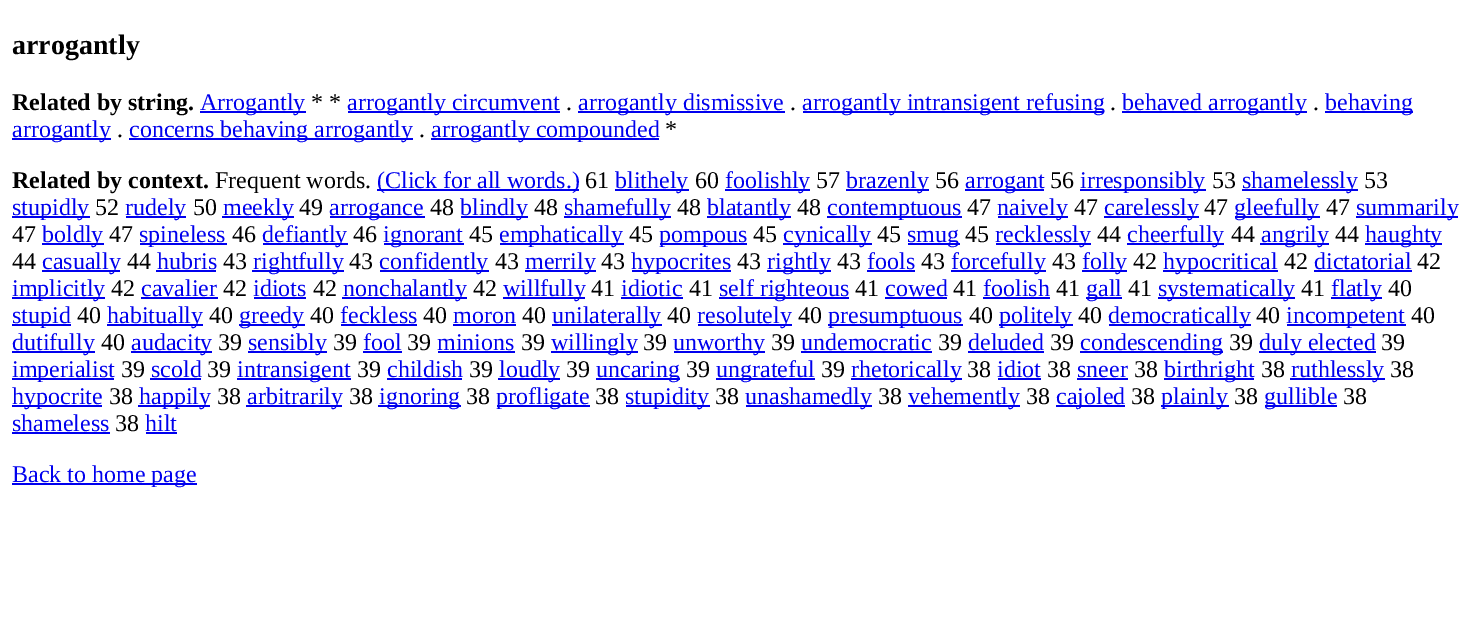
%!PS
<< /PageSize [1479 618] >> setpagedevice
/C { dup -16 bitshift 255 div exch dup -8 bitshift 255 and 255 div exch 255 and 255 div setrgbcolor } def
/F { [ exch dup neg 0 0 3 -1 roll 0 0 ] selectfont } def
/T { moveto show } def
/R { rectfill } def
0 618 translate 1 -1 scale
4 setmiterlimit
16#FFFFFF C
0 0 1479 618 R
/LiberationSerif-Bold 28 F
16#000000 C
(arrogantly) 12 54 T
/LiberationSerif-Bold 24 F
(Related by string.) 12 110 T
16#0000EE C
200 111 106 2 R
/LiberationSerif-Regular 24 F
(Arrogantly) 200 110 T
16#000000 C
(* *) 311 110 T
16#0000EE C
348 111 212 2 R
(arrogantly circumvent) 347 110 T
578 111 207 2 R
(arrogantly dismissive) 578 110 T
803 111 301 2 R
(arrogantly intransigent refusing) 802 110 T
1122 111 185 2 R
(behaved arrogantly) 1122 110 T
1325 111 88 2 R
(behaving) 1325 110 T
16#000000 C
(.) 566 110 T
(.) 790 110 T
(.) 1110 110 T
(.) 1313 110 T
16#0000EE C
12 138 99 2 R
(arrogantly) 12 137 T
129 138 284 2 R
(concerns behaving arrogantly) 129 137 T
431 138 228 2 R
(arrogantly compounded) 431 137 T
16#000000 C
(*) 665 137 T
(.) 117 137 T
(.) 419 137 T
/LiberationSerif-Bold 24 F
(Related by context.) 12 188 T
/LiberationSerif-Regular 24 F
(Frequent words.) 215 188 T
16#0000EE C
377 189 202 2 R
(\(Click for all words.\)) 377 188 T
16#000000 C
(61) 585 188 T
16#0000EE C
615 189 74 2 R
(blithely) 615 188 T
16#000000 C
(60) 695 188 T
16#0000EE C
725 189 85 2 R
(foolishly) 725 188 T
16#000000 C
(57) 816 188 T
16#0000EE C
846 189 83 2 R
(brazenly) 846 188 T
16#000000 C
(56) 935 188 T
16#0000EE C
965 189 79 2 R
(arrogant) 965 188 T
16#000000 C
(56) 1050 188 T
16#0000EE C
1080 189 126 2 R
(irresponsibly) 1080 188 T
16#000000 C
(53) 1212 188 T
16#0000EE C
1242 189 116 2 R
(shamelessly) 1242 188 T
16#000000 C
(53) 1364 188 T
16#0000EE C
12 216 78 2 R
(stupidly) 12 215 T
16#000000 C
(52) 95 215 T
16#0000EE C
126 216 60 2 R
(rudely) 125 215 T
16#000000 C
(50) 193 215 T
16#0000EE C
222 216 72 2 R
(meekly) 223 215 T
16#000000 C
(49) 299 215 T
16#0000EE C
330 216 95 2 R
(arrogance) 329 215 T
16#000000 C
(48) 430 215 T
16#0000EE C
461 216 67 2 R
(blindly) 460 215 T
16#000000 C
(48) 534 215 T
16#0000EE C
564 216 107 2 R
(shamefully) 564 215 T
16#000000 C
(48) 677 215 T
16#0000EE C
707 216 84 2 R
(blatantly) 707 215 T
16#000000 C
(48) 797 215 T
16#0000EE C
827 216 135 2 R
(contemptuous) 827 215 T
16#000000 C
(47) 967 215 T
16#0000EE C
998 216 70 2 R
(naively) 997 215 T
16#000000 C
(47) 1074 215 T
16#0000EE C
1104 216 95 2 R
(carelessly) 1104 215 T
16#000000 C
(47) 1204 215 T
16#0000EE C
1235 216 85 2 R
(gleefully) 1234 215 T
16#000000 C
(47) 1326 215 T
16#0000EE C
1356 216 102 2 R
(summarily) 1356 215 T
16#000000 C
(47) 12 242 T
16#0000EE C
42 243 62 2 R
(boldly) 42 242 T
16#000000 C
(47) 109 242 T
16#0000EE C
140 243 87 2 R
(spineless) 139 242 T
16#000000 C
(46) 232 242 T
16#0000EE C
263 243 85 2 R
(defiantly) 262 242 T
16#000000 C
(46) 353 242 T
16#0000EE C
384 243 80 2 R
(ignorant) 383 242 T
16#000000 C
(45) 469 242 T
16#0000EE C
500 243 124 2 R
(emphatically) 499 242 T
16#000000 C
(45) 629 242 T
16#0000EE C
660 243 87 2 R
(pompous) 659 242 T
16#000000 C
(45) 753 242 T
16#0000EE C
783 243 89 2 R
(cynically) 783 242 T
16#000000 C
(45) 877 242 T
16#0000EE C
908 243 52 2 R
(smug) 907 242 T
16#000000 C
(45) 965 242 T
16#0000EE C
996 243 95 2 R
(recklessly) 995 242 T
16#000000 C
(44) 1097 242 T
16#0000EE C
1127 243 97 2 R
(cheerfully) 1127 242 T
16#000000 C
(44) 1231 242 T
16#0000EE C
1260 243 69 2 R
(angrily) 1261 242 T
16#000000 C
(44) 1335 242 T
16#0000EE C
1365 243 77 2 R
(haughty) 1365 242 T
16#000000 C
(44) 12 269 T
16#0000EE C
42 270 78 2 R
(casually) 42 269 T
16#000000 C
(44) 127 269 T
16#0000EE C
(hubris) 157 269 T
156 270 60 2 R
16#000000 C
(43) 223 269 T
16#0000EE C
252 270 92 2 R
(rightfully) 253 269 T
16#000000 C
(43) 349 269 T
16#0000EE C
380 270 109 2 R
(confidently) 379 269 T
16#000000 C
(43) 495 269 T
16#0000EE C
525 270 71 2 R
(merrily) 525 269 T
16#000000 C
(43) 601 269 T
16#0000EE C
632 270 99 2 R
(hypocrites) 631 269 T
16#000000 C
(43) 737 269 T
16#0000EE C
767 270 64 2 R
(rightly) 767 269 T
16#000000 C
(43) 837 269 T
16#0000EE C
(fools) 867 269 T
867 270 48 2 R
16#000000 C
(43) 921 269 T
16#0000EE C
951 270 95 2 R
(forcefully) 951 269 T
16#000000 C
(43) 1052 269 T
16#0000EE C
1082 270 45 2 R
(folly) 1082 269 T
16#000000 C
(42) 1133 269 T
16#0000EE C
1163 270 115 2 R
(hypocritical) 1163 269 T
16#000000 C
(42) 1284 269 T
16#0000EE C
(dictatorial) 1314 269 T
1314 270 98 2 R
16#000000 C
(42) 1417 269 T
16#0000EE C
12 297 93 2 R
(implicitly) 12 296 T
16#000000 C
(42) 111 296 T
16#0000EE C
(cavalier) 141 296 T
141 297 77 2 R
16#000000 C
(42) 223 296 T
16#0000EE C
(idiots) 253 296 T
254 297 52 2 R
16#000000 C
(42) 313 296 T
16#0000EE C
342 297 125 2 R
(nonchalantly) 343 296 T
16#000000 C
(42) 473 296 T
16#0000EE C
503 297 82 2 R
(willfully) 503 296 T
16#000000 C
(41) 591 296 T
16#0000EE C
(idiotic) 621 296 T
621 297 62 2 R
16#000000 C
(41) 689 296 T
16#0000EE C
719 297 130 2 R
(self righteous) 719 296 T
16#000000 C
(41) 855 296 T
16#0000EE C
(cowed) 885 296 T
885 297 62 2 R
16#000000 C
(41) 953 296 T
16#0000EE C
(foolish) 983 296 T
983 297 67 2 R
16#000000 C
(41) 1056 296 T
16#0000EE C
1086 297 36 2 R
(gall) 1086 296 T
16#000000 C
(41) 1128 296 T
16#0000EE C
1158 297 137 2 R
(systematically) 1158 296 T
16#000000 C
(41) 1301 296 T
16#0000EE C
1331 297 51 2 R
(flatly) 1331 296 T
16#000000 C
(40) 1388 296 T
16#0000EE C
12 324 59 2 R
(stupid) 12 323 T
16#000000 C
(40) 77 323 T
16#0000EE C
107 324 96 2 R
(habitually) 107 323 T
16#000000 C
(40) 209 323 T
16#0000EE C
239 324 66 2 R
(greedy) 239 323 T
16#000000 C
(40) 310 323 T
16#0000EE C
(feckless) 340 323 T
341 324 76 2 R
16#000000 C
(40) 423 323 T
16#0000EE C
(moron) 453 323 T
453 324 63 2 R
16#000000 C
(40) 522 323 T
16#0000EE C
552 324 110 2 R
(unilaterally) 552 323 T
16#000000 C
(40) 667 323 T
16#0000EE C
698 324 94 2 R
(resolutely) 697 323 T
16#000000 C
(40) 798 323 T
16#0000EE C
828 324 135 2 R
(presumptuous) 828 323 T
16#000000 C
(40) 969 323 T
16#0000EE C
999 324 74 2 R
(politely) 999 323 T
16#000000 C
(40) 1078 323 T
16#0000EE C
1109 324 142 2 R
(democratically) 1108 323 T
16#000000 C
(40) 1256 323 T
16#0000EE C
1287 324 119 2 R
(incompetent) 1286 323 T
16#000000 C
(40) 1411 323 T
16#0000EE C
12 351 83 2 R
(dutifully) 12 350 T
16#000000 C
(40) 101 350 T
16#0000EE C
131 351 81 2 R
(audacity) 131 350 T
16#000000 C
(39) 218 350 T
16#0000EE C
248 351 79 2 R
(sensibly) 248 350 T
16#000000 C
(39) 333 350 T
16#0000EE C
(fool) 363 350 T
363 351 39 2 R
16#000000 C
(39) 407 350 T
16#0000EE C
(minions) 437 350 T
438 351 77 2 R
16#000000 C
(39) 521 350 T
16#0000EE C
551 351 87 2 R
(willingly) 551 350 T
16#000000 C
(39) 643 350 T
16#0000EE C
674 351 91 2 R
(unworthy) 673 350 T
16#000000 C
(39) 771 350 T
16#0000EE C
(undemocratic) 801 350 T
801 351 131 2 R
16#000000 C
(39) 938 350 T
16#0000EE C
(deluded) 968 350 T
968 351 76 2 R
16#000000 C
(39) 1050 350 T
16#0000EE C
1080 351 143 2 R
(condescending) 1080 350 T
16#000000 C
(39) 1229 350 T
16#0000EE C
1259 351 117 2 R
(duly elected) 1259 350 T
16#000000 C
(39) 1381 350 T
16#0000EE C
12 378 102 2 R
(imperialist) 12 377 T
16#000000 C
(39) 121 377 T
16#0000EE C
(scold) 151 377 T
150 378 51 2 R
16#000000 C
(39) 207 377 T
16#0000EE C
237 378 114 2 R
(intransigent) 237 377 T
16#000000 C
(39) 357 377 T
16#0000EE C
(childish) 387 377 T
387 378 75 2 R
16#000000 C
(39) 469 377 T
16#0000EE C
498 378 62 2 R
(loudly) 499 377 T
16#000000 C
(39) 566 377 T
16#0000EE C
596 378 84 2 R
(uncaring) 596 377 T
16#000000 C
(39) 686 377 T
16#0000EE C
716 378 99 2 R
(ungrateful) 716 377 T
16#000000 C
(39) 821 377 T
16#0000EE C
851 378 111 2 R
(rhetorically) 851 377 T
16#000000 C
(38) 967 377 T
16#0000EE C
(idiot) 997 377 T
998 378 43 2 R
16#000000 C
(38) 1047 377 T
16#0000EE C
(sneer) 1077 377 T
1077 378 51 2 R
16#000000 C
(38) 1134 377 T
16#0000EE C
1164 378 90 2 R
(birthright) 1164 377 T
16#000000 C
(38) 1261 377 T
16#0000EE C
1290 378 95 2 R
(ruthlessly) 1291 377 T
16#000000 C
(38) 1390 377 T
16#0000EE C
12 405 90 2 R
(hypocrite) 12 404 T
16#000000 C
(38) 109 404 T
16#0000EE C
138 405 72 2 R
(happily) 139 404 T
16#000000 C
(38) 217 404 T
16#0000EE C
246 405 96 2 R
(arbitrarily) 247 404 T
16#000000 C
(38) 349 404 T
16#0000EE C
378 405 83 2 R
(ignoring) 379 404 T
16#000000 C
(38) 466 404 T
16#0000EE C
497 405 93 2 R
(profligate) 496 404 T
16#000000 C
(38) 595 404 T
16#0000EE C
626 405 84 2 R
(stupidity) 625 404 T
16#000000 C
(38) 715 404 T
16#0000EE C
746 405 126 2 R
(unashamedly) 745 404 T
16#000000 C
(38) 878 404 T
16#0000EE C
908 405 112 2 R
(vehemently) 908 404 T
16#000000 C
(38) 1026 404 T
16#0000EE C
1056 405 69 2 R
(cajoled) 1056 404 T
16#000000 C
(38) 1131 404 T
16#0000EE C
1161 405 68 2 R
(plainly) 1161 404 T
16#000000 C
(38) 1234 404 T
16#0000EE C
1265 405 72 2 R
(gullible) 1264 404 T
16#000000 C
(38) 1343 404 T
16#0000EE C
(shameless) 12 431 T
12 432 98 2 R
16#000000 C
(38) 115 431 T
16#0000EE C
(hilt) 145 431 T
146 432 31 2 R
12 483 185 2 R
(Back to home page) 12 482 T
showpage
